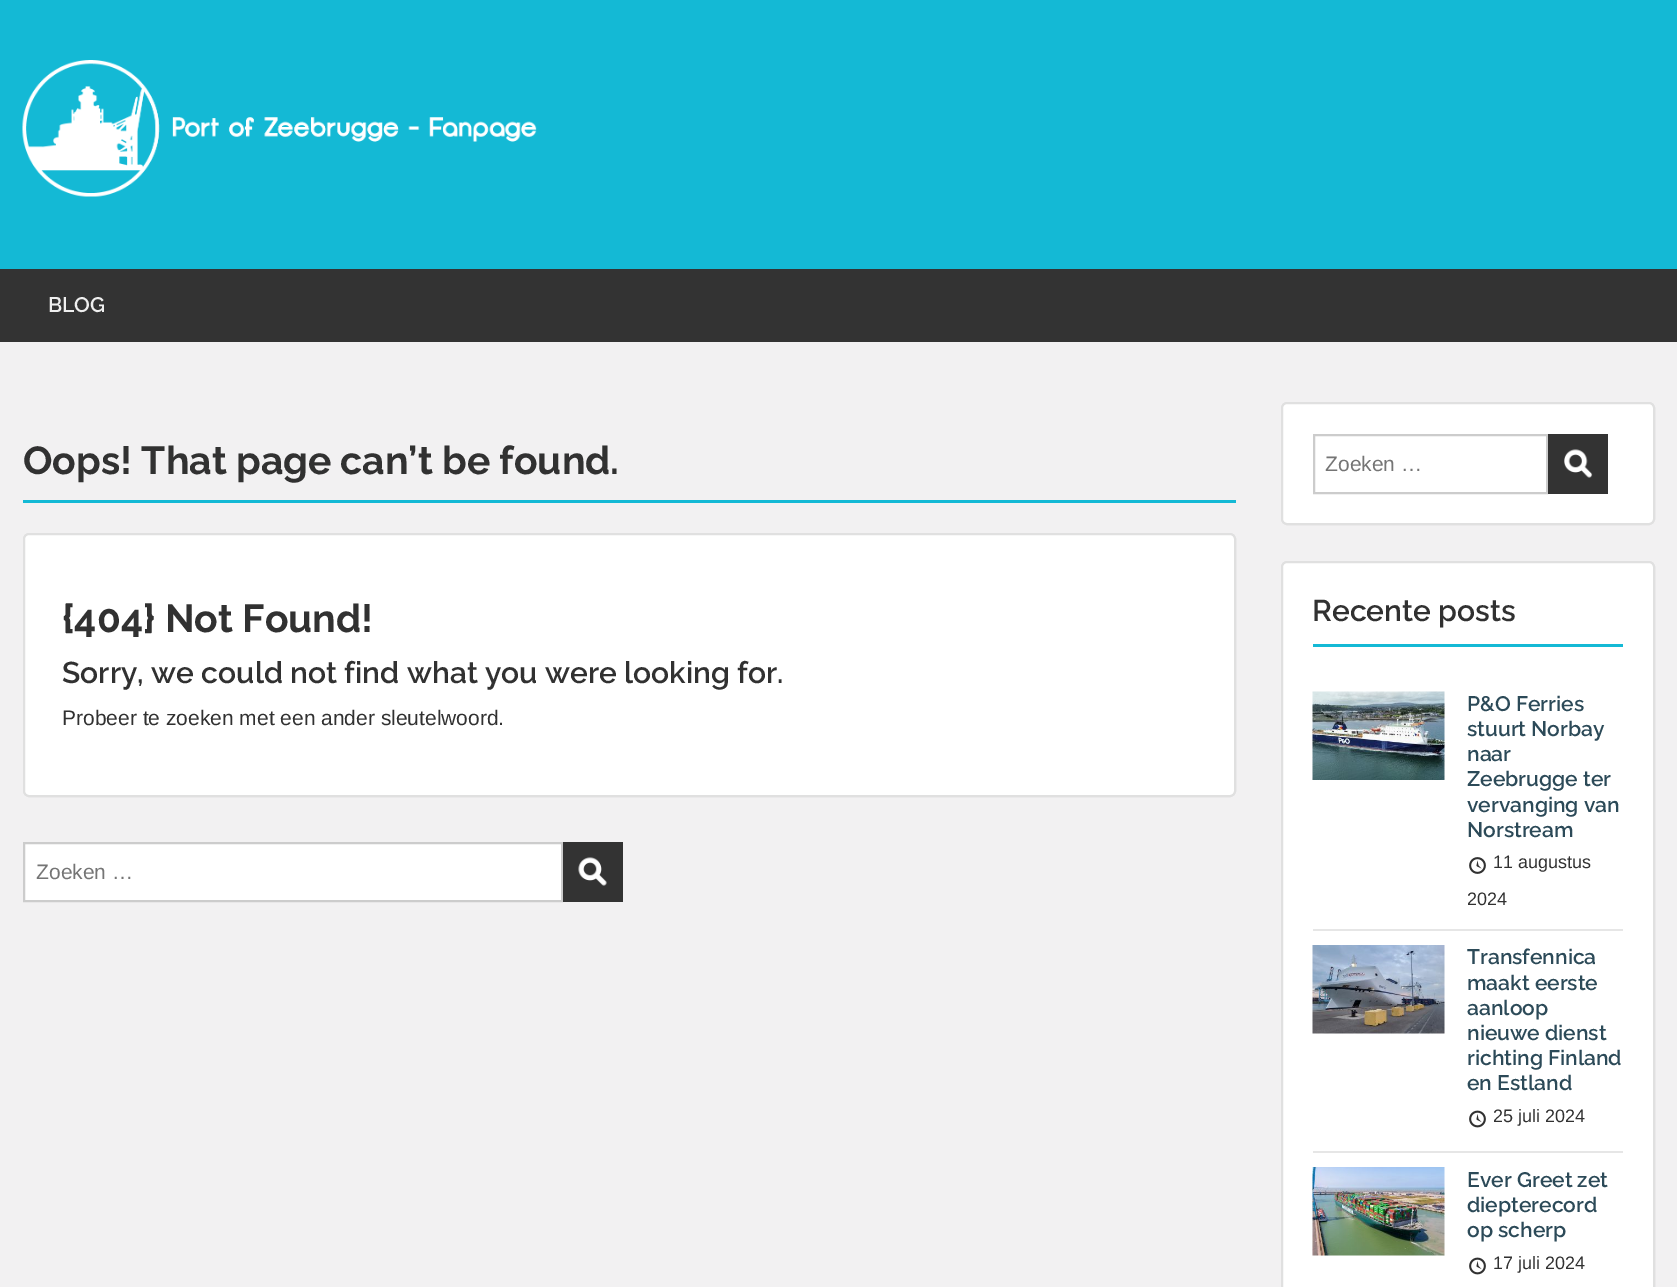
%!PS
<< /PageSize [1677 1287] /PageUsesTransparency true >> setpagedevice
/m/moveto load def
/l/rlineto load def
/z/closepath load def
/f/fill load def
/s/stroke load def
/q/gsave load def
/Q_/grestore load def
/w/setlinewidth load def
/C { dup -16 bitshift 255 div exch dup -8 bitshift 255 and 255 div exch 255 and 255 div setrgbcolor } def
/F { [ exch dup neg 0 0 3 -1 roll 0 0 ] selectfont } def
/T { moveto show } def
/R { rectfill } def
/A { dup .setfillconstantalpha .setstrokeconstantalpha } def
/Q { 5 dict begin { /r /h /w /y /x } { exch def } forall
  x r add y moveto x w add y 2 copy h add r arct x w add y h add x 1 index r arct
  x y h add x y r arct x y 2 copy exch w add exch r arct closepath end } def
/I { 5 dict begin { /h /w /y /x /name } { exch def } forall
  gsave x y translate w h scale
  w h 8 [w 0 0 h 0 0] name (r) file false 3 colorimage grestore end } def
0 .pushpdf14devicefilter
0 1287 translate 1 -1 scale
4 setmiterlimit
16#F2F1F2 C
0 0 1677 1287 R
16#14B9D5 C
0 0 1677 269 R
(1.rgb) 22 60 515 137 I
16#333333 C
0 269 1677 73 R
/Raleway-SemiBold 21 F
16#EFEFEF C
(BLOG) 48 312 T
16#14B9D5 C
23 500 1213 3 R
/Raleway-Bold 39 F
16#313131 C
(Oops! That page can’t be found.) 23 474 T
16#FFFFFF C
23 533 1213 264 6 Q f
0.12 A
16#000000 C
2 w
24 534 1211 262 5 Q s
1 A
16#313131 C
({404} Not Found!) 62 632 T
/Raleway-SemiBold 30 F
(Sorry, we could not find what you were looking for.) 62 683 T
/LiberationSans-Regular 21 F
(Probeer te zoeken met een ander sleutelwoord.) 62 725 T
16#FFFFFF C
24 843 m 538 0 l 0 58 l -538 0 l z q f Q_
16#CCCCCC C
s
16#757575 C
(Zoeken …) 36 879 T
16#333333 C
563 842 60 60 R
(2.rgb) 578 857 29 29 I
16#FFFFFF C
1281 402 374 123 6 Q f
0.12 A
16#000000 C
1282 403 372 121 5 Q s
1 A
16#CCCCCC C
1314 435 233 58 rectstroke
16#757575 C
(Zoeken …) 1325 471 T
16#333333 C
1548 434 60 60 R
(3.rgb) 1564 449 29 29 I
16#FFFFFF C
1281 561 374 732 6 Q f
0.12 A
16#000000 C
1282 562 372 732 5 Q s
1 A
16#14B9D5 C
1313 644 310 3 R
/Raleway-SemiBold 30 F
16#313131 C
(Recente posts) 1312 621 T
16#E6E6E6 C
1313 929 310 2 R
(4.rgb) 1312 691 133 89 I
/Raleway-SemiBold 21 F
16#2C4A58 C
(P&O Ferries) 1467 711 T
(stuurt Norbay) 1467 736 T
(naar) 1467 761 T
(Zeebrugge ter) 1467 786 T
(vervanging van) 1467 812 T
(Norstream) 1467 837 T
(5.rgb) 1469 857 17 17 I
/LiberationSans-Regular 18 F
16#313131 C
(11 augustus) 1493 868 T
(2024) 1467 905 T
16#E6E6E6 C
1313 1151 310 2 R
(6.rgb) 1312 945 133 89 I
/Raleway-SemiBold 21 F
16#2C4A58 C
(Transfennica) 1467 964 T
(maakt eerste) 1467 990 T
(aanloop) 1467 1015 T
(nieuwe dienst) 1467 1040 T
(richting Finland) 1467 1065 T
(en Estland) 1467 1090 T
(7.rgb) 1469 1110 17 18 I
/LiberationSans-Regular 18 F
16#313131 C
(25 juli 2024) 1493 1122 T
(8.rgb) 1312 1167 133 89 I
/Raleway-SemiBold 21 F
16#2C4A58 C
(Ever Greet zet) 1467 1187 T
(diepterecord) 1467 1212 T
(op scherp) 1467 1237 T
(7.rgb) 1469 1257 17 18 I
/LiberationSans-Regular 18 F
16#313131 C
(17 juli 2024) 1493 1269 T
.poppdf14devicefilter showpage
